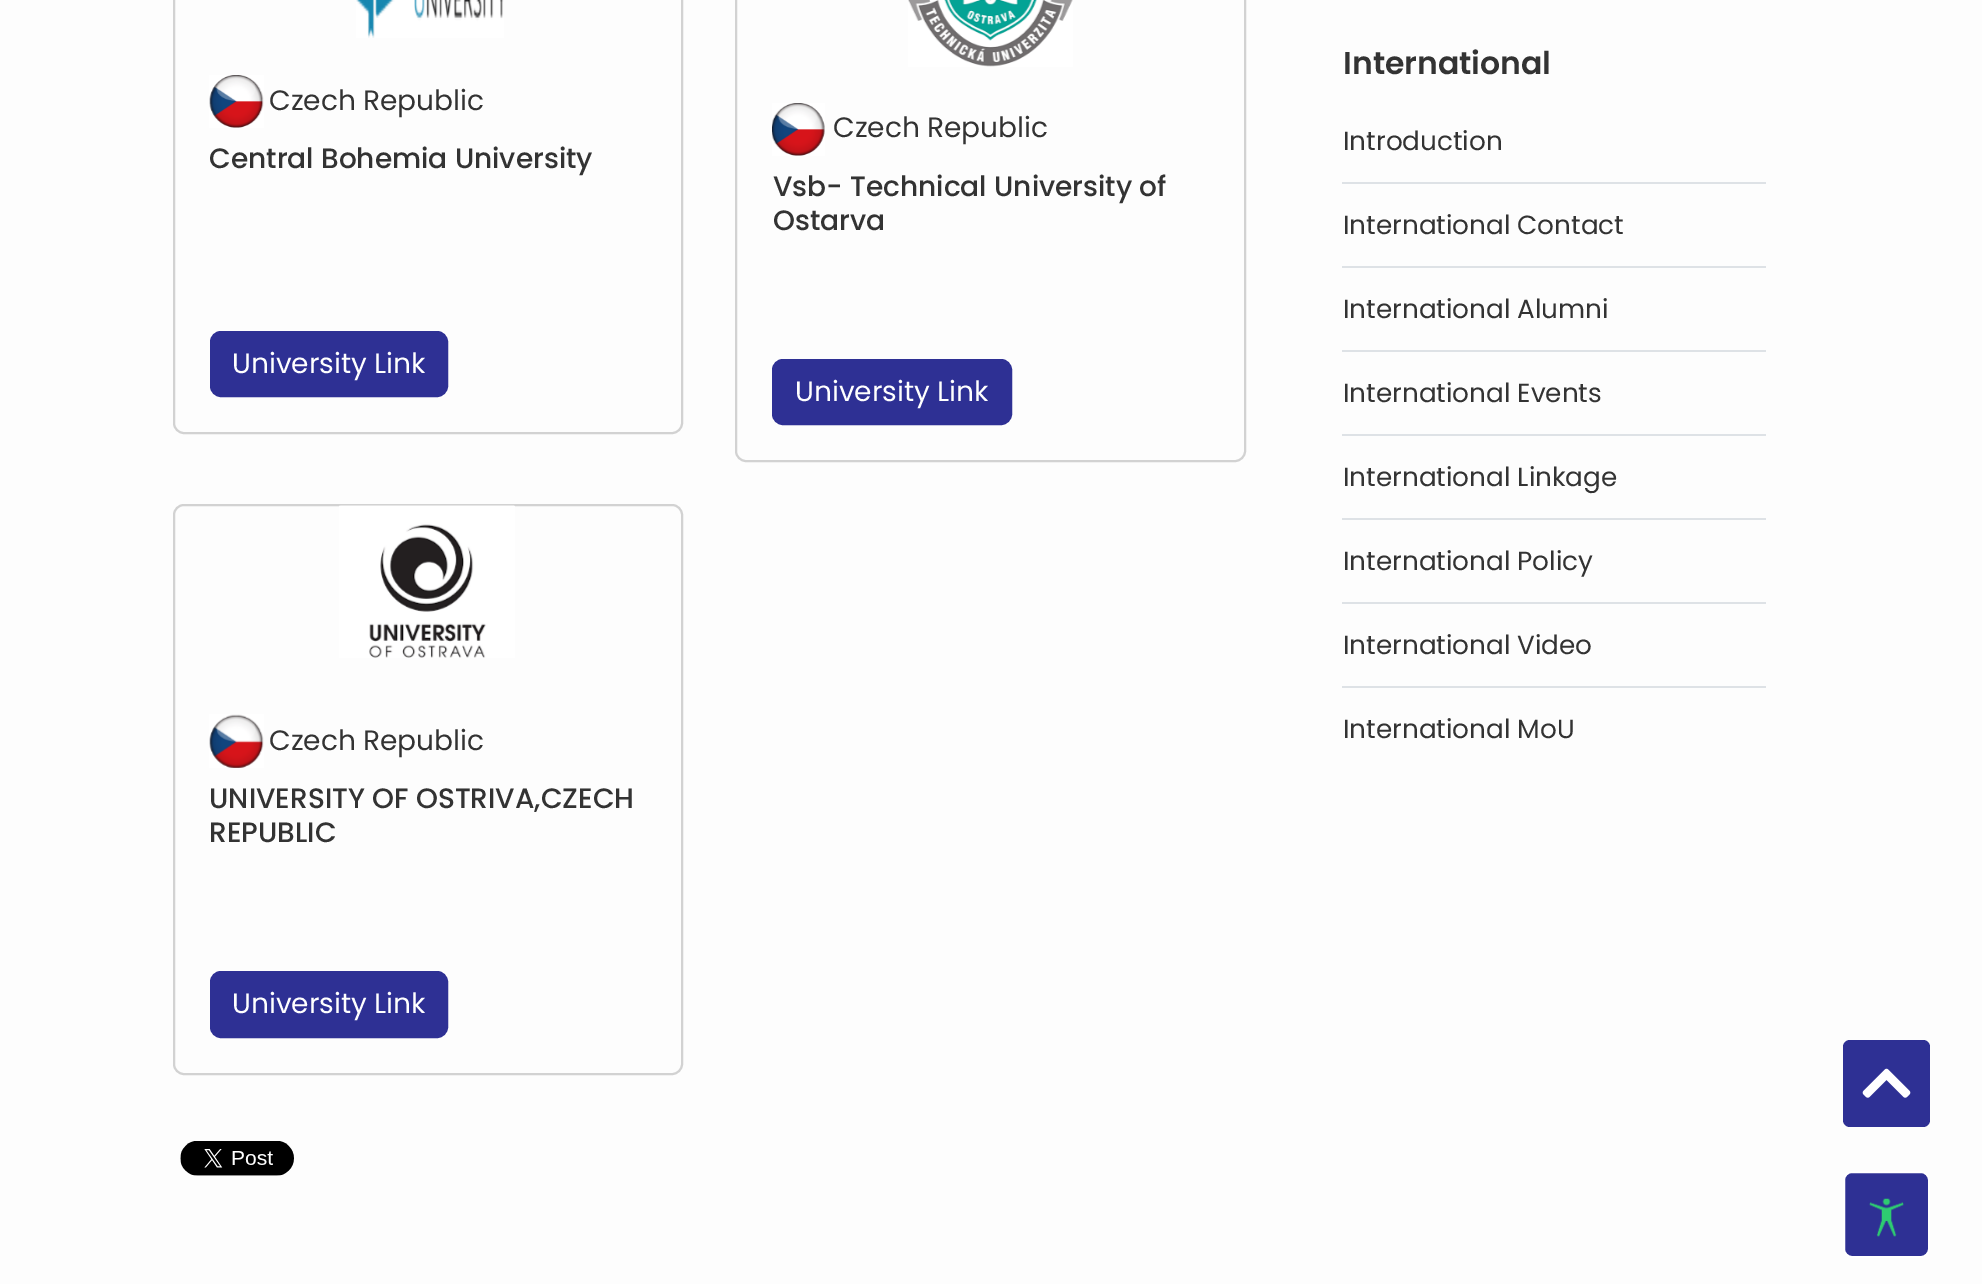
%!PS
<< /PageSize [1982 1284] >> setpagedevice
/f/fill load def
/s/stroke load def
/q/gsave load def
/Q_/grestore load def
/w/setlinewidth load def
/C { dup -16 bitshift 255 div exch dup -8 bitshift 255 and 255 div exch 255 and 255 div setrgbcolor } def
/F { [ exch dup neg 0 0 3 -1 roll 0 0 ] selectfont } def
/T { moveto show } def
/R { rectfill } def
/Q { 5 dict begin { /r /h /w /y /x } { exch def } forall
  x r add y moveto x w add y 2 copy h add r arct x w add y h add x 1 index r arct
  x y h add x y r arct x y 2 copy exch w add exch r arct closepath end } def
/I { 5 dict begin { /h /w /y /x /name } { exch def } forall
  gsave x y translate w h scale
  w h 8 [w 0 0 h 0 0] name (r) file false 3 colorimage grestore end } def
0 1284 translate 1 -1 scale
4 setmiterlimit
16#FDFDFD C
0 0 1982 1284 R
16#D2D2D2 C
2 w
174 -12 508 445 10 Q s
(1.rgb) 356 0 148 38 I
(2.rgb) 209 75 55 53 I
/Poppins-Regular 28 F
16#333333 C
(Czech Republic) 269 110 T
/Poppins-Medium 28 F
(Central Bohemia University) 209 168 T
16#2E3094 C
211 332 236 64 10 Q q f Q_
s
/Poppins-Regular 28 F
16#FFFFFF C
(University Link) 232 373 T
16#D2D2D2 C
736 -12 509 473 10 Q s
(3.rgb) 908 0 165 67 I
(4.rgb) 772 103 53 53 I
16#333333 C
(Czech Republic) 833 137 T
/Poppins-Medium 28 F
(Vsb- Technical University of) 773 196 T
(Ostarva) 773 230 T
16#2E3094 C
773 360 238 64 10 Q q f Q_
s
/Poppins-Regular 28 F
16#FFFFFF C
(University Link) 795 401 T
16#D2D2D2 C
174 505 508 569 10 Q s
(5.rgb) 339 505 176 153 I
(6.rgb) 209 714 55 54 I
16#333333 C
(Czech Republic) 269 750 T
/Poppins-Medium 28 F
(UNIVERSITY OF OSTRIVA,CZECH) 209 808 T
(REPUBLIC) 209 842 T
16#2E3094 C
211 972 236 65 10 Q q f Q_
s
/Poppins-Regular 28 F
16#FFFFFF C
(University Link) 232 1013 T
/Poppins-SemiBold 31.5 F
16#333333 C
(International) 1343 74 T
16#DEE2E6 C
1342 182 424 2 R
/Poppins-Regular 26.25 F
16#333333 C
(Introduction) 1343 150 T
16#DEE2E6 C
1342 266 424 2 R
16#333333 C
(International Contact) 1343 234 T
16#DEE2E6 C
1342 350 424 2 R
16#333333 C
(International Alumni) 1343 318 T
16#DEE2E6 C
1342 434 424 2 R
16#333333 C
(International Events) 1343 402 T
16#DEE2E6 C
1342 518 424 2 R
16#333333 C
(International Linkage) 1343 486 T
16#DEE2E6 C
1342 602 424 2 R
16#333333 C
(International Policy) 1343 570 T
16#DEE2E6 C
1342 686 424 2 R
16#333333 C
(International Video) 1343 654 T
(International MoU) 1343 738 T
(7.rgb) 180 1141 114 35 I
16#2E3094 C
1843 1040 87 87 7 Q f
(8.rgb) 1862 1068 49 30 I
1844 1172 85 85 8 Q q f Q_
16#FFFFFF C
s
(9.rgb) 1869 1198 35 39 I
showpage
